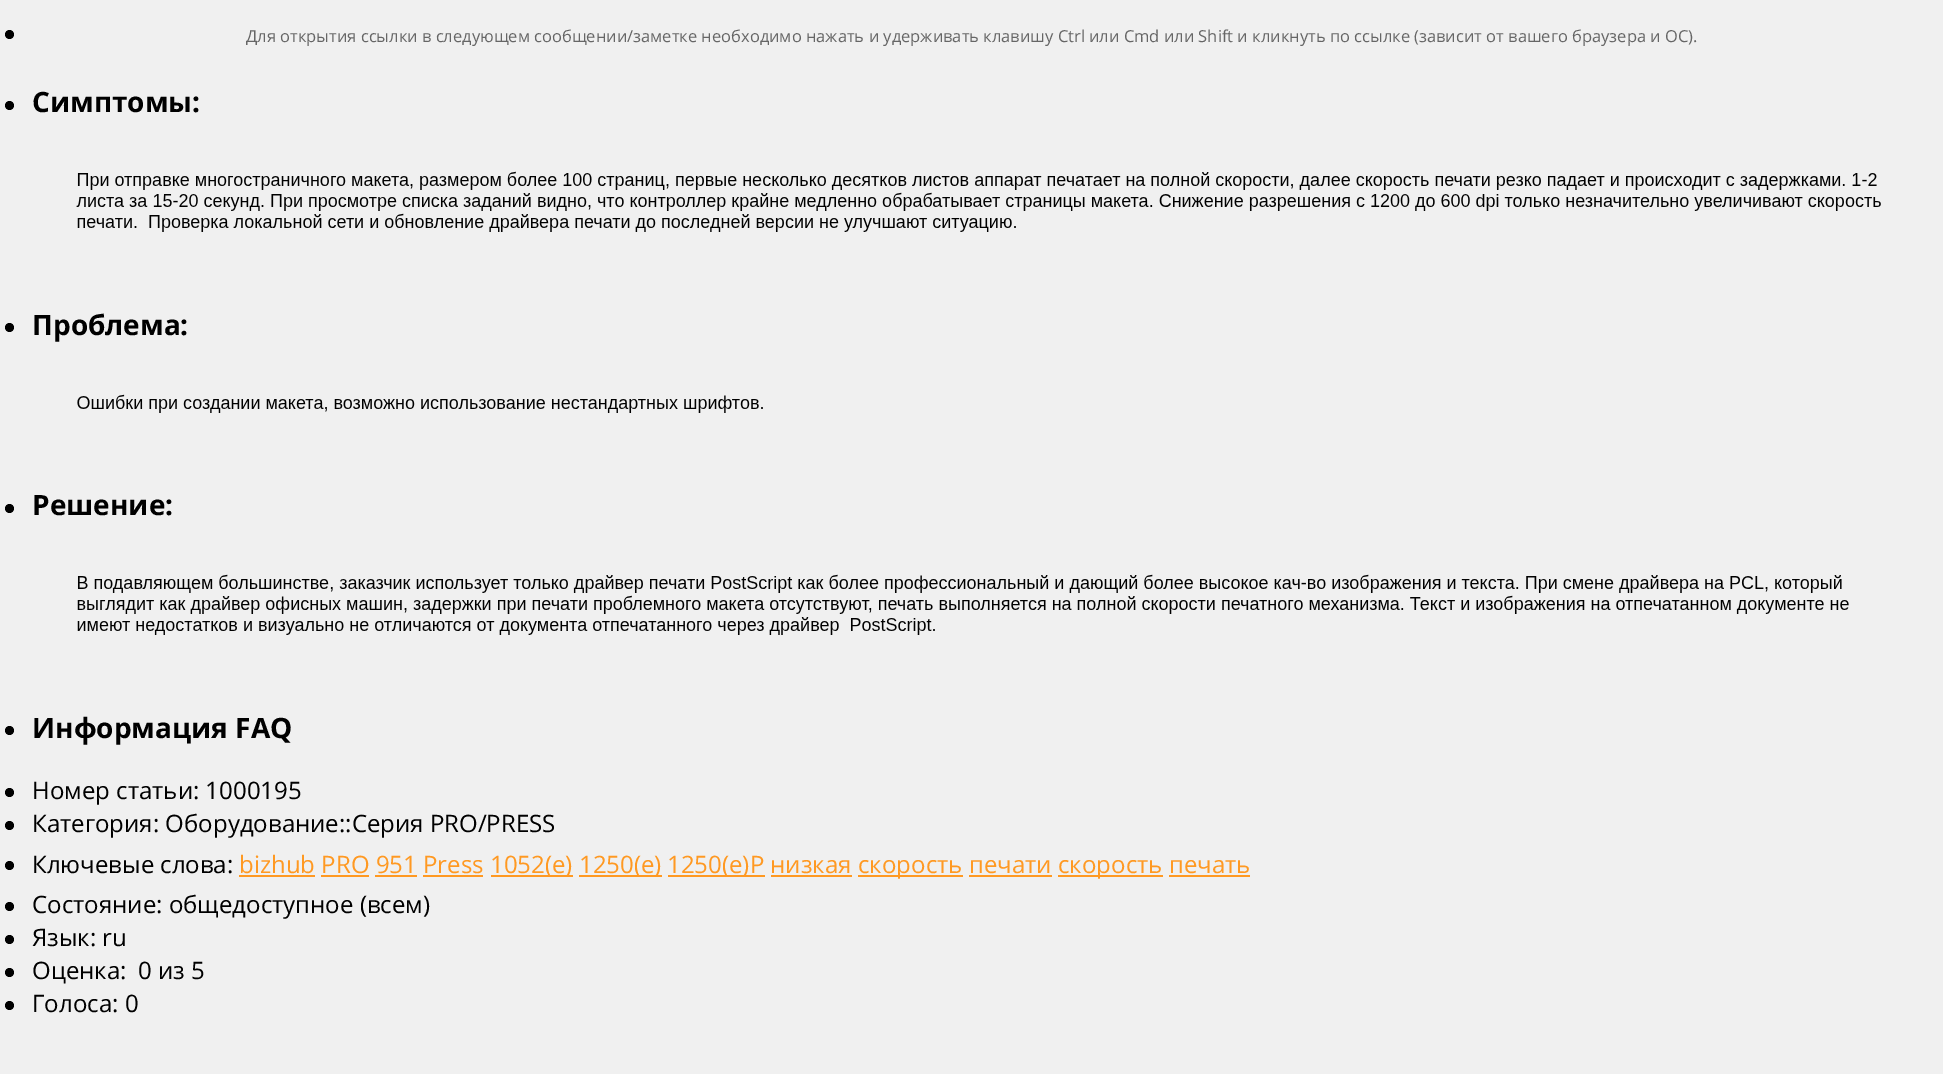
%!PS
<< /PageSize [1943 1074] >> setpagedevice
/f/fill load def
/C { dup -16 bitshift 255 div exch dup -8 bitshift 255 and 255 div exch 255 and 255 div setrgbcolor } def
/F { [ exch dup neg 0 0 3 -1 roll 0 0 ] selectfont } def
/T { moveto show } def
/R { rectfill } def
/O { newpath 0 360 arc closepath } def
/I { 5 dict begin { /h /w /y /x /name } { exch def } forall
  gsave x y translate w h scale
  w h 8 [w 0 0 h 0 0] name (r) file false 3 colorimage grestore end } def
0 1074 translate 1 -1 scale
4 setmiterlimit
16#F0F0F0 C
0 0 1943 1074 R
16#000000 C
9.5 34.5 4.5 O f
/OpenSans-Regular 16.5 F
16#666666 C
(Для открытия ссылки в следующем сообщении/заметке необходимо нажать и удерживать клавишу Ctrl или Cmd или Shift и кликнуть по ссылке \(зависит от вашего браузера и ОС\).) 246 42 T
16#000000 C
9.5 105.5 4.5 O f
/OpenSans-Bold 28 F
(Симптомы:) 32 112 T
(1.rgb) 76 171 1805 61 I
9.5 327.5 4.5 O f
(Проблема:) 32 335 T
(2.rgb) 77 394 686 19 I
9.5 508.5 4.5 O f
(Решение:) 32 515 T
(3.rgb) 77 574 1772 61 I
9.5 730.5 4.5 O f
(Информация FAQ) 32 738 T
9.5 792.5 4.5 O f
/OpenSans-Regular 24 F
(Номер статьи: 1000195) 32 799 T
9.5 825.5 4.5 O f
(Категория: Оборудование::Серия PRO/PRESS) 32 832 T
9.5 865.5 4.5 O f
(Ключевые слова:) 32 873 T
16#FF9922 C
(bizhub PRO 951 Press) 239 873 T
239 875 76 2 R
491 875 82 2 R
(1052\(e\)) 490 873 T
579 875 83 2 R
(1250\(e\)) 579 873 T
668 875 97 2 R
(1250\(e\)P низкая) 667 873 T
858 875 105 2 R
(скорость печати) 858 873 T
1058 875 105 2 R
(скорость печать) 1058 873 T
321 875 48 2 R
375 875 42 2 R
423 875 60 2 R
771 875 81 2 R
969 875 83 2 R
1169 875 81 2 R
16#000000 C
9.5 906.5 4.5 O f
(Состояние: общедоступное \(всем\)) 32 913 T
9.5 939.5 4.5 O f
(Язык: ru) 32 946 T
9.5 972.5 4.5 O f
(Оценка:) 32 979 T
(0 из 5) 138 979 T
9.5 1005.5 4.5 O f
(Голоса: 0) 32 1012 T
showpage
